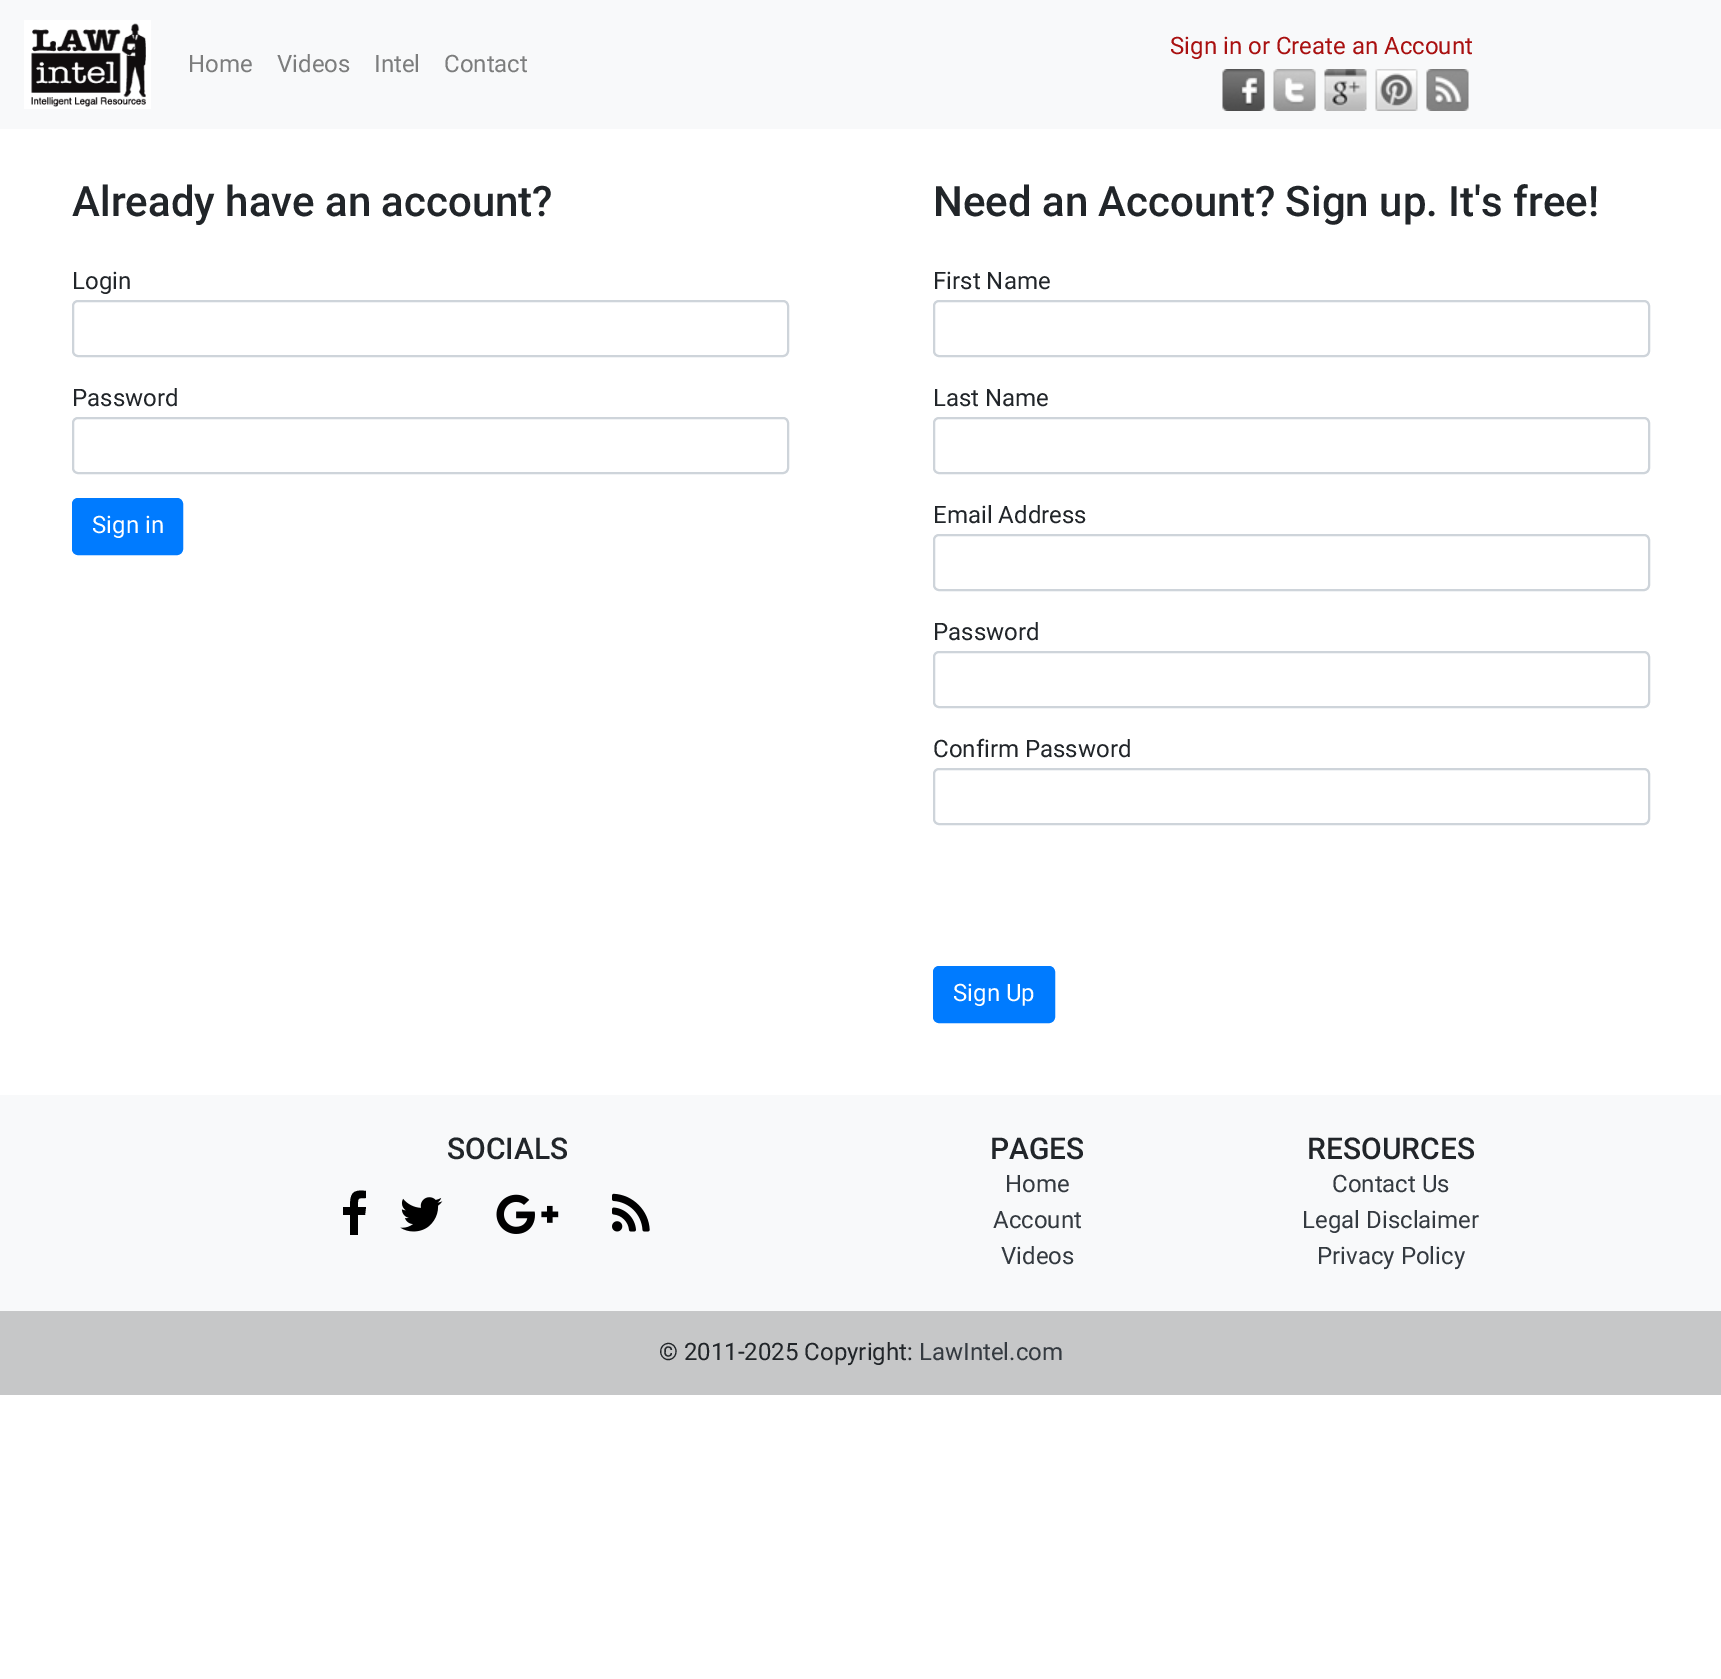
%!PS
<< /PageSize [1721 1679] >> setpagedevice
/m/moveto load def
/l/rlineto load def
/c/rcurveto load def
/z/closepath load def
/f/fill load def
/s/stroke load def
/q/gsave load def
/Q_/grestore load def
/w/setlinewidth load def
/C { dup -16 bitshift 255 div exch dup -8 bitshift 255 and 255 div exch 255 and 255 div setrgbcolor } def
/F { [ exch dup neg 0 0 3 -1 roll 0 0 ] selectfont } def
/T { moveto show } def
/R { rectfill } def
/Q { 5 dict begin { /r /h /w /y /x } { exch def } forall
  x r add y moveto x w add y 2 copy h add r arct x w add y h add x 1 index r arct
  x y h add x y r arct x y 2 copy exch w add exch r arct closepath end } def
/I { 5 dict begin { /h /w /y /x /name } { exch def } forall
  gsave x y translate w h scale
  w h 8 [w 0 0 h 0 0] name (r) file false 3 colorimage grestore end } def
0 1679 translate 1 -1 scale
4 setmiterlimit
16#FFFFFF C
0 0 1721 1679 R
16#F8F9FA C
0 0 1721 129 R
(1.rgb) 24 20 127 89 I
/Roboto-Regular 24 F
16#A91010 C
(Sign in or Create an Account) 1170 54 T
(2.rgb) 1222 69 43 42 I
(3.rgb) 1273 69 43 42 I
(4.rgb) 1324 69 43 42 I
(5.rgb) 1375 69 43 42 I
(6.rgb) 1426 69 43 42 I
16#7C7D7D C
(Home) 188 72 T
(Videos) 277 72 T
(Intel) 374 72 T
(Contact) 444 72 T
/Roboto-Medium 42 F
16#212529 C
(Already have an account?) 72 216 T
/Roboto-Regular 24 F
(Login) 72 289 T
16#CED4DA C
2 w
73 301 715 55 5 Q s
16#212529 C
(Password) 72 406 T
16#CED4DA C
73 418 715 55 5 Q s
16#007BFF C
73 499 109 55 5 Q q f Q_
s
16#FFFFFF C
(Sign in) 92 533 T
/Roboto-Medium 42 F
16#212529 C
(Need an Account? Sign up. It's free!) 933 216 T
/Roboto-Regular 24 F
(First Name) 933 289 T
16#CED4DA C
934 301 715 55 5 Q s
16#212529 C
(Last Name) 933 406 T
16#CED4DA C
934 418 715 55 5 Q s
16#212529 C
(Email Address) 933 523 T
16#CED4DA C
934 535 715 55 5 Q s
16#212529 C
(Password) 933 640 T
16#CED4DA C
934 652 715 55 5 Q s
16#212529 C
(Confirm Password) 933 757 T
16#CED4DA C
934 769 715 55 5 Q s
16#007BFF C
934 967 120 55 5 Q q f Q_
s
16#FFFFFF C
(Sign Up) 953 1001 T
16#F8F9FA C
0 1095 1721 216 R
/Roboto-Medium 30 F
16#212529 C
(SOCIALS) 447 1159 T
16#000000 C
366 1191 m 0 7 l -9 0 -8 0 -8 9 c 8 0 l -1 8 l -7 0 l 0 20 l -8 0 l 0 -20 l -7 0 l 0 -8 l 7 0 l 0 -13 2 -18 16 -16 c z f
(7.rgb) 400 1197 43 35 I
(8.rgb) 496 1194 63 40 I
(9.rgb) 612 1193 38 39 I
16#212529 C
(PAGES) 990 1159 T
/Roboto-Regular 24 F
16#343A40 C
(Home) 1005 1192 T
(Account) 993 1228 T
(Videos) 1001 1264 T
/Roboto-Medium 30 F
16#212529 C
(RESOURCES) 1307 1159 T
/Roboto-Regular 24 F
16#343A40 C
(Contact Us) 1332 1192 T
(Legal Disclaimer) 1302 1228 T
(Privacy Policy) 1317 1264 T
16#C6C7C8 C
0 1311 1721 84 R
16#212529 C
(© 2011-2025 Copyright:) 659 1360 T
16#343A40 C
(LawIntel.com) 919 1360 T
showpage
